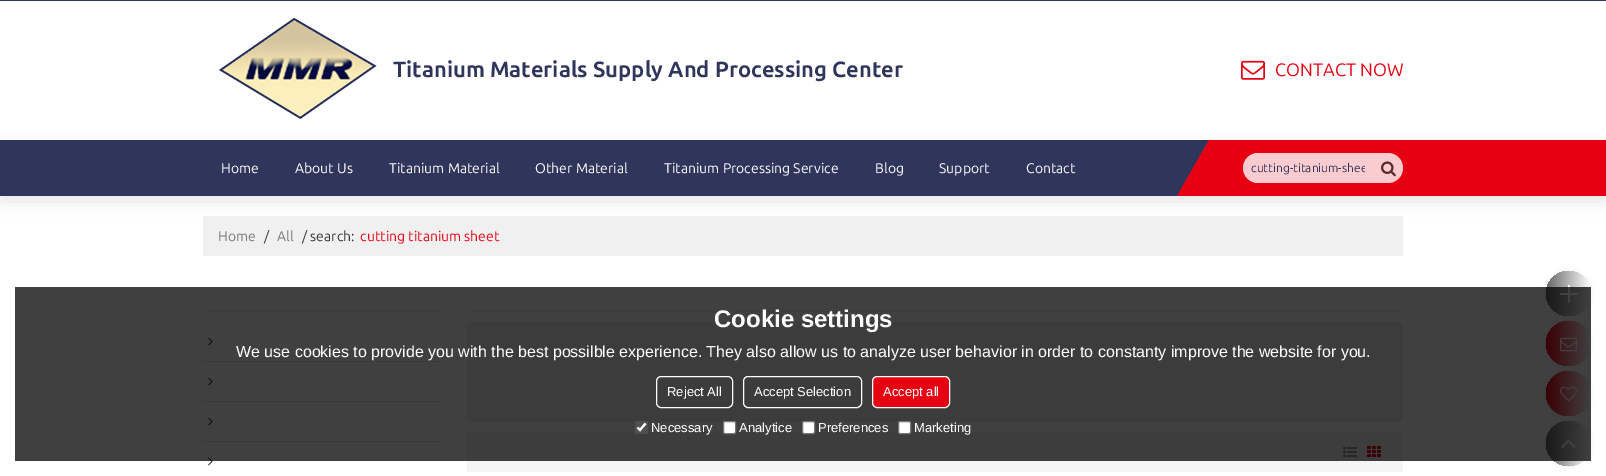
%!PS
<< /PageSize [1606 476] /PageUsesTransparency true >> setpagedevice
/m/moveto load def
/l/rlineto load def
/z/closepath load def
/f/fill load def
/s/stroke load def
/q/gsave load def
/Q_/grestore load def
/w/setlinewidth load def
/C { dup -16 bitshift 255 div exch dup -8 bitshift 255 and 255 div exch 255 and 255 div setrgbcolor } def
/F { [ exch dup neg 0 0 3 -1 roll 0 0 ] selectfont } def
/T { moveto show } def
/R { rectfill } def
/A { dup .setfillconstantalpha .setstrokeconstantalpha } def
/O { newpath 0 360 arc closepath } def
/Q { 5 dict begin { /r /h /w /y /x } { exch def } forall
  x r add y moveto x w add y 2 copy h add r arct x w add y h add x 1 index r arct
  x y h add x y r arct x y 2 copy exch w add exch r arct closepath end } def
/S { 12 dict begin { /a /b /q /h /w /y /x } { exch def } forall gsave /was 0 def
  9 -2 -9 { dup b mul 4 div /e exch def 1 sub .425 mul 2.718 exch exp 1 add a .99 .min exch div /now exch def
    1 1 now sub 1 was sub div sub A /was now def
    w h .min e 2 mul add 0 gt { x e sub y e sub w e 2 mul add h e 2 mul add
      q e add b .6 mul add w h .min 2 div e add .min 0 .max Q fill } if } for grestore end } def
/I { 5 dict begin { /h /w /y /x /name } { exch def } forall
  gsave x y translate w h scale
  w h 8 [w 0 0 h 0 0] name (r) file false 3 colorimage grestore end } def
0 .pushpdf14devicefilter
0 476 translate 1 -1 scale
4 setmiterlimit
16#FFFFFF C
0 0 1606 476 R
16#30355B C
0 0 1606 1 R
(1.rgb) 219 17 158 102 I
/Ubuntu-Bold 22 F
(Titanium Materials Supply And Processing Center) 393 77 T
(2.rgb) 1241 60 24 20 I
/Ubuntu-Regular 18 F
16#E70012 C
(CONTACT NOW) 1275 76 T
16#000000 C
0 145 1606 56 0 7.5 .1 S
16#30355B C
0 140 1209 56 R
/Ubuntu-Regular 14 F
16#FFFFFF C
(Home) 221 173 T
(About Us) 295 173 T
(Titanium Material) 389 173 T
(Other Material) 535 173 T
(Titanium Processing Service) 664 173 T
(Blog) 875 173 T
(Support) 939 173 T
(Contact) 1026 173 T
16#E70012 C
1209 140 m 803 0 l -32 56 l -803 0 l z f
16#FACCD0 C
1243 153 160 30 15 Q f
q
1251 158 114 20 rectclip
/Ubuntu-Regular 12 F
16#30355B C
(cutting-titanium-shee) 1251 172 T
Q_
(3.rgb) 1381 161 15 16 I
16#F0F0F0 C
203 216 1200 40 R
16#777777 C
(Home) 218 241 T
16#333333 C
(/) 264 241 T
16#777777 C
(All) 277 241 T
16#333333 C
(/ search:) 302 241 T
16#E70012 C
(cutting titanium sheet) 360 241 T
16#EEEEEE C
203 311 240 1 R
16#E5E5E5 C
203 361 240 1 R
(4.rgb) 208 337 5 9 I
203 401 240 1 R
(4.rgb) 208 377 5 9 I
203 441 240 1 R
(4.rgb) 208 417 5 9 I
(4.rgb) 208 457 5 9 I
16#EEEEEE C
467 311 936 1 R
16#F0F0F0 C
467 322 936 100 4 Q f
16#F5F5F5 C
467 432 936 40 R
(5.rgb) 1343 446 14 12 I
(6.rgb) 1367 446 14 11 I
16#EEEEEE C
1546 271 45 45 22.5 2.5 1 S
q 1568.5 293.5 22.5 O clip newpath
<< /ShadingType 2 /ColorSpace /DeviceRGB /Coords [1546 294 1591 294] /Extend [true true] /Function << /FunctionType 2 /Domain [0 1] /C0 [.4 .4 .4] /C1 [1 1 1] /N 1 >> >> shfill Q_
16#FFFFFF C
1560 293 18 2 R
1568 285 2 18 R
16#EEEEEE C
1546 321 45 45 22.5 2.5 1 S
q 1568.5 343.5 22.5 O clip newpath
<< /ShadingType 2 /ColorSpace /DeviceRGB /Coords [1546 344 1591 344] /Extend [true true] /Function << /FunctionType 2 /Domain [0 1] /C0 [.906 0 .071] /C1 [1 1 1] /N 1 >> >> shfill Q_
(7.rgb) 1560 337 17 15 I
1546 371 45 45 22.5 2.5 1 S
q 1568.5 393.5 22.5 O clip newpath
<< /ShadingType 2 /ColorSpace /DeviceRGB /Coords [1546 394 1591 394] /Extend [true true] /Function << /FunctionType 2 /Domain [0 1] /C0 [.906 0 .071] /C1 [1 1 1] /N 1 >> >> shfill Q_
(8.rgb) 1560 386 17 16 I
1546 421 45 45 22.5 2.5 1 S
q 1568.5 443.5 22.5 O clip newpath
<< /ShadingType 2 /ColorSpace /DeviceRGB /Coords [1546 444 1591 444] /Extend [true true] /Function << /FunctionType 2 /Domain [0 1] /C0 [.4 .4 .4] /C1 [1 1 1] /N 1 >> >> shfill Q_
(9.rgb) 1561 439 15 9 I
0.75 A
16#000000 C
15 287 1576 174 R
/LiberationSans-Bold 24 F
1 A
16#FFFFFF C
(Cookie settings) 714 327 T
/LiberationSans-Regular 16 F
(We use cookies to provide you with the best possilble experience. They also allow us to analyze user behavior in order to constanty improve the website for you.) 236 357 T
656.5 376.5 76 31 4.5 Q s
/LiberationSans-Regular 13 F
(Reject All) 667 396 T
743.5 376.5 118 31 4.5 Q s
(Accept Selection) 754 396 T
16#E70012 C
872.5 376.5 77 31 4.5 Q q f Q_
16#FFFFFF C
s
(Accept all) 883 396 T
0.3 A
16#767676 C
635 421 13 13 2 Q f
1 A
16#FFFFFF C
2.1 w
637.5 427.5 m 2.5 2.5 l 5.5 -6.5 l s
(Necessary) 651 432 T
723.5 421.5 12 12 1.5 Q q f Q_
16#767676 C
1 w
s
16#FFFFFF C
(Analytice) 739 432 T
802.5 421.5 12 12 1.5 Q q f Q_
16#767676 C
s
16#FFFFFF C
(Preferences) 818 432 T
898.5 421.5 12 12 1.5 Q q f Q_
16#767676 C
s
16#FFFFFF C
(Marketing) 914 432 T
.poppdf14devicefilter showpage
